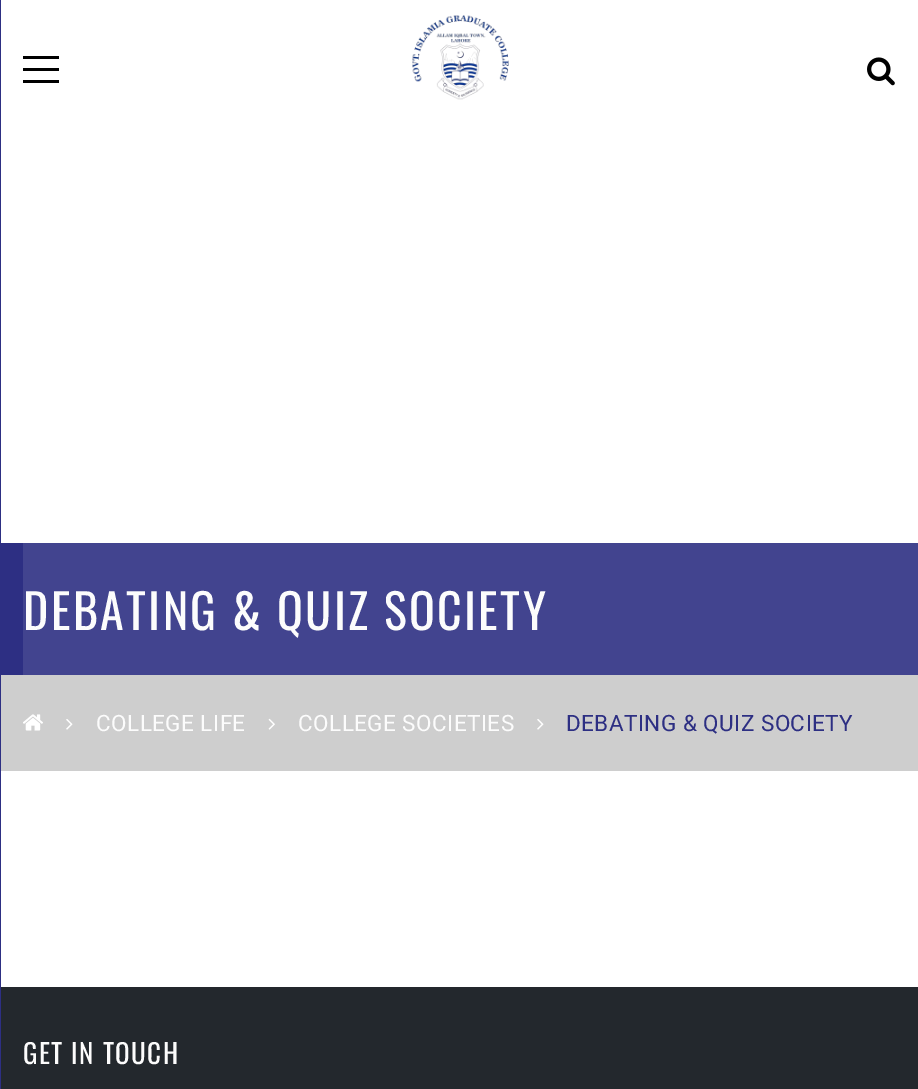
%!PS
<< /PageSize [918 1089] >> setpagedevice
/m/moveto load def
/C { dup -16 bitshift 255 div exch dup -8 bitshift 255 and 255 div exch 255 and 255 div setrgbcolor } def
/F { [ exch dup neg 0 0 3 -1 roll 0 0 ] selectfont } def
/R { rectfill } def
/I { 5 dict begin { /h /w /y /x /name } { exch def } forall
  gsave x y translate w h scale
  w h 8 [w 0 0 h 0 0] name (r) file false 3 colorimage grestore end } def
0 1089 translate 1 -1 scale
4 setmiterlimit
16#FFFFFF C
0 0 918 1089 R
16#2D2F83 C
0 0 1 1089 R
16#000000 C
23 56 36 3 R
23 68 36 3 R
23 80 36 3 R
(1.rgb) 412 15 97 85 I
(2.rgb) 867 57 28 29 I
16#42448F C
23 543 895 132 R
16#2D2F83 C
1 543 22 132 R
/Oswald-Regular 48 F
16#FCFCFC C
23 630 m 2.4 0 (DEBATING & QUIZ SOCIETY) ashow
16#CECECE C
1 675 917 96 R
(3.rgb) 23 714 20 17 I
(4.rgb) 66 719 7 11 I
/Roboto-Regular 22.5 F
16#FCFCFC C
96 731 m .45 0 (COLLEGE LIFE) ashow
(5.rgb) 268 718 7 12 I
298 731 m .45 0 (COLLEGE SOCIETIES) ashow
(4.rgb) 537 719 7 11 I
16#2D2F83 C
566 731 m .45 0 (DEBATING & QUIZ SOCIETY) ashow
16#23282D C
1 987 917 102 R
/Oswald-Regular 27 F
16#FCFCFC C
23 1064 m 1.4 0 (GET IN TOUCH) ashow
showpage
